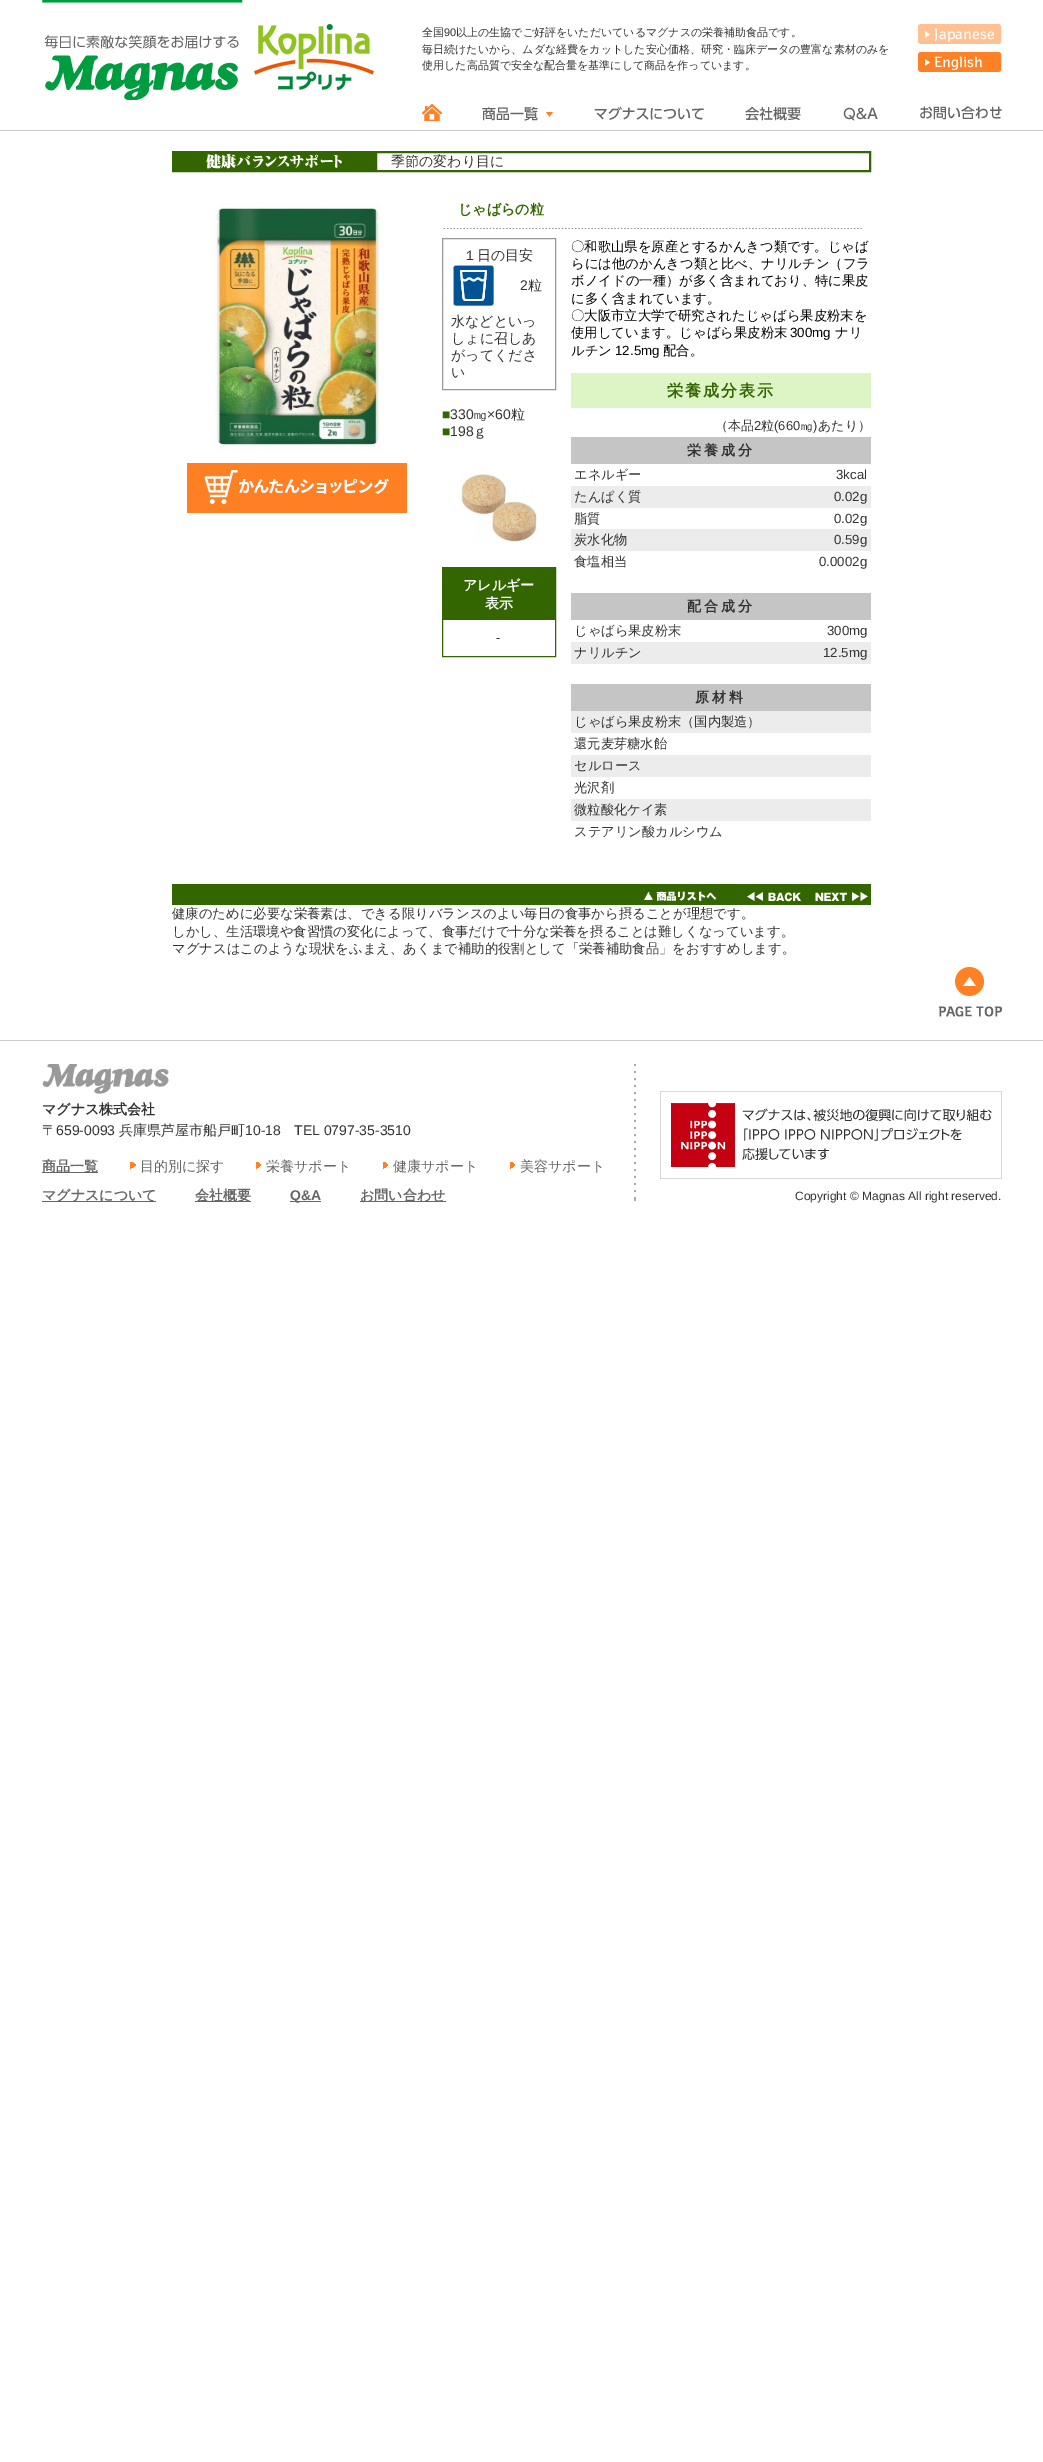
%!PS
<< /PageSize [1043 2462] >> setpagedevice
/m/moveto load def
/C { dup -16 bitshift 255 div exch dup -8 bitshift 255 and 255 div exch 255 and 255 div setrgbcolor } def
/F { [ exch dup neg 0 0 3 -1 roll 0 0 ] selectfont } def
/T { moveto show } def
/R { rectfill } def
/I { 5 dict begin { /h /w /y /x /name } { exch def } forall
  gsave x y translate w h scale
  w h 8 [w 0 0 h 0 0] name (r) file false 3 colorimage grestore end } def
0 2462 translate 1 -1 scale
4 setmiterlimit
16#FFFFFF C
0 0 1043 2462 R
16#CCCCCC C
0 130 1043 1 R
(1.rgb) 42 0 332 100 I
/WenQuanYiZenHei-Medium 11 F
16#333333 C
(全国) 422 36 T
/LiberationSans-Regular 11 F
(90) 444 36 T
/WenQuanYiZenHei-Medium 11 F
(以上の生協でご好評をいただいているマグナスの栄養補助食品です。) 456 36 T
(毎日続けたいから、ムダな経費をカットした安心価格、研究・臨床データの豊富な素材のみを) 422 53 T
(使用した高品質で安全な配合量を基準にして商品を作っています。) 422 69 T
(2.rgb) 918 24 84 20 I
(3.rgb) 918 52 84 20 I
(4.rgb) 422 104 20 17 I
(5.rgb) 482 107 71 14 I
(6.rgb) 594 106 110 14 I
(7.rgb) 745 107 56 14 I
(8.rgb) 843 107 35 14 I
(9.rgb) 920 106 82 14 I
16#336600 C
172.5 151.5 698 20 rectstroke
173 152 203 19 R
(10.rgb) 206 154 136 15 I
376.5 152.5 493 18 rectstroke
/WenQuanYiZenHei-Medium 14 F
16#333333 C
(季節の変わり目に) 391 166 T
(11.rgb) 212 203 173 250 I
(12.rgb) 187 463 220 50 I
/WenQuanYiZenHei-Bold 14 F
16#336600 C
(じゃばらの粒) 458 214 T
(13.rgb) 443 228 419 1 I
16#999999 C
442.5 238.5 113 151 rectstroke
/WenQuanYiZenHei-Medium 14 F
16#333333 C
(１日の目安) 463 260 T
(14.rgb) 453 265 41 41 I
/LiberationSans-Regular 14 F
(2) 520 290 T
/WenQuanYiZenHei-Medium 14 F
(粒) 528 290 T
(水などといっ) 451 326 T
(しょに召しあ) 451 343 T
(がってくださ) 451 360 T
(い) 451 377 T
/LiberationSans-Regular 14 F
16#336600 C
(■) 442 419 T
16#333333 C
(330) 450 419 T
/WenQuanYiZenHei-Medium 14 F
(㎎) 473 419 T
/LiberationSans-Regular 14 F
(×60) 487 419 T
/WenQuanYiZenHei-Medium 14 F
(粒) 511 419 T
/LiberationSans-Regular 14 F
16#336600 C
(■) 442 436 T
16#333333 C
(198) 450 436 T
/WenQuanYiZenHei-Medium 14 F
(ｇ) 473 436 T
(15.rgb) 460 473 77 69 I
16#336600 C
442.5 567.5 113 89 rectstroke
443 568 112 52 R
/WenQuanYiZenHei-Bold 14 F
16#FFFFFF C
(アレルギー) 463 590 T
(表示) 485 608 T
/LiberationSans-Regular 13.25 F
16#333333 C
(-) 496 642 T
/WenQuanYiZenHei-Medium 13.35 F
16#000000 C
(〇和歌山県を原産とするかんきつ類です。じゃば) 571 251 T
(らには他のかんきつ類と比べ、ナリルチン（フラ) 571 268 T
(ボノイドの一種）が多く含まれており、特に果皮) 571 285 T
(に多く含まれています。) 571 303 T
(〇大阪市立大学で研究されたじゃばら果皮粉末を) 571 320 T
(使用しています。じゃばら果皮粉末) 571 337 T
/LiberationSans-Regular 13.35 F
(300mg) 790 337 T
/WenQuanYiZenHei-Medium 13.35 F
(ナリ) 835 337 T
(ルチン) 571 355 T
/LiberationSans-Regular 13.35 F
(12.5mg) 615 355 T
/WenQuanYiZenHei-Medium 13.35 F
(配合。) 663 355 T
16#DDF4C5 C
571 373 300 35 R
/WenQuanYiZenHei-Bold 16 F
16#336600 C
667 396 m 2 0 (栄養成分表示) ashow
/WenQuanYiZenHei-Medium 13 F
16#333333 C
(（本品) 715 430 T
/LiberationSans-Regular 13 F
(2) 754 430 T
/WenQuanYiZenHei-Medium 13 F
(粒) 761 430 T
/LiberationSans-Regular 13 F
(\(660) 774 430 T
/WenQuanYiZenHei-Medium 13 F
(㎎) 800 430 T
/LiberationSans-Regular 13 F
(\)) 813 430 T
/WenQuanYiZenHei-Medium 13 F
(あたり）) 818 430 T
16#C5C5C5 C
571 437 300 27 R
/WenQuanYiZenHei-Bold 14 F
16#333333 C
687 455 m 3 0 (栄養成分) ashow
/WenQuanYiZenHei-Medium 13.25 F
(エネルギー) 574 479 T
/LiberationSans-Regular 13.25 F
(3kcal) 836 479 T
16#ECECEC C
571 486 300 22 R
/WenQuanYiZenHei-Medium 13.25 F
16#333333 C
(たんぱく質) 574 501 T
/LiberationSans-Regular 13.25 F
(0.02g) 834 501 T
/WenQuanYiZenHei-Medium 13.25 F
(脂質) 574 523 T
/LiberationSans-Regular 13.25 F
(0.02g) 834 523 T
16#ECECEC C
571 529 300 22 R
/WenQuanYiZenHei-Medium 13.25 F
16#333333 C
(炭水化物) 574 544 T
/LiberationSans-Regular 13.25 F
(0.59g) 834 544 T
/WenQuanYiZenHei-Medium 13.25 F
(食塩相当) 574 566 T
/LiberationSans-Regular 13.25 F
(0.0002g) 819 566 T
16#C5C5C5 C
571 593 300 27 R
/WenQuanYiZenHei-Bold 14 F
16#333333 C
687 611 m 3 0 (配合成分) ashow
/WenQuanYiZenHei-Medium 13.25 F
(じゃばら果皮粉末) 574 635 T
/LiberationSans-Regular 13.25 F
(300mg) 827 635 T
16#ECECEC C
571 642 300 22 R
/WenQuanYiZenHei-Medium 13.25 F
16#333333 C
(ナリルチン) 574 657 T
/LiberationSans-Regular 13.25 F
(12.5mg) 823 657 T
16#C5C5C5 C
571 684 300 27 R
/WenQuanYiZenHei-Bold 14 F
16#333333 C
695 702 m 3 0 (原材料) ashow
16#ECECEC C
571 711 300 22 R
/WenQuanYiZenHei-Medium 13.25 F
16#333333 C
(じゃばら果皮粉末（国内製造）) 574 726 T
(還元麦芽糖水飴) 574 748 T
16#ECECEC C
571 755 300 22 R
16#333333 C
(セルロース) 574 770 T
(光沢剤) 574 792 T
16#ECECEC C
571 799 300 22 R
16#333333 C
(微粒酸化ケイ素) 574 814 T
(ステアリン酸カルシウム) 574 836 T
16#336600 C
172 884 699 21 R
(16.rgb) 644 891 73 10 I
(17.rgb) 747 892 54 10 I
(18.rgb) 815 892 53 9 I
/WenQuanYiZenHei-Medium 13.35 F
16#333333 C
(健康のために必要な栄養素は、できる限りバランスのよい毎日の食事から摂ることが理想です。) 172 918 T
(しかし、生活環境や食習慣の変化によって、食事だけで十分な栄養を摂ることは難しくなっています。) 172 936 T
(マグナスはこのような現状をふまえ、あくまで補助的役割として「栄養補助食品」をおすすめします。) 172 953 T
(19.rgb) 938 967 64 50 I
16#CCCCCC C
0 1040 1043 1 R
(20.rgb) 634 1064 2 138 I
(21.rgb) 42 1064 127 30 I
/WenQuanYiZenHei-Bold 14 F
16#333333 C
(マグナス株式会社) 42 1114 T
/WenQuanYiZenHei-Medium 14 F
(〒) 42 1135 T
/LiberationSans-Regular 14 F
(659-0093) 56 1135 T
/WenQuanYiZenHei-Medium 14 F
(兵庫県芦屋市船戸町) 119 1135 T
/LiberationSans-Regular 14 F
(10-18) 245 1135 T
(TEL 0797-35-3510) 294 1135 T
16#666666 C
42 1172 56 1 R
/WenQuanYiZenHei-Bold 14 F
(商品一覧) 42 1171 T
(22.rgb) 130 1162 6 7 I
/WenQuanYiZenHei-Medium 14 F
(目的別に探す) 140 1171 T
(23.rgb) 256 1162 5 7 I
(栄養サポート) 266 1171 T
(23.rgb) 383 1162 5 7 I
(健康サポート) 393 1171 T
(23.rgb) 510 1162 5 7 I
(美容サポート) 520 1171 T
42 1201 114 1 R
/WenQuanYiZenHei-Bold 14 F
(マグナスについて) 42 1200 T
195 1201 56 1 R
(会社概要) 195 1200 T
290 1201 31 1 R
/LiberationSans-Bold 14 F
(Q&A) 290 1200 T
360 1201 86 1 R
/WenQuanYiZenHei-Bold 14 F
(お問い合わせ) 360 1200 T
(24.rgb) 660 1091 342 88 I
/LiberationSans-Regular 12 F
16#333333 C
(Copyright © Magnas All right reserved.) 795 1200 T
showpage
